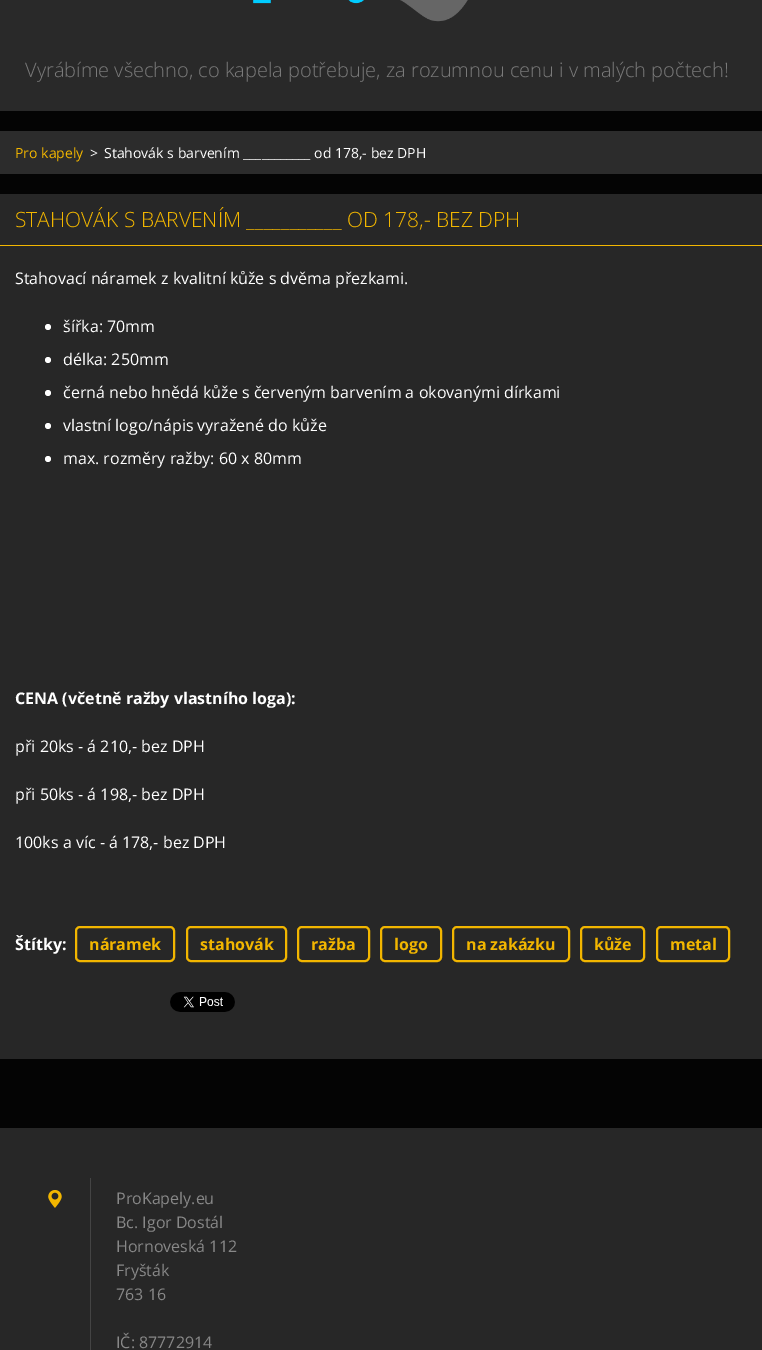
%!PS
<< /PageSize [762 1350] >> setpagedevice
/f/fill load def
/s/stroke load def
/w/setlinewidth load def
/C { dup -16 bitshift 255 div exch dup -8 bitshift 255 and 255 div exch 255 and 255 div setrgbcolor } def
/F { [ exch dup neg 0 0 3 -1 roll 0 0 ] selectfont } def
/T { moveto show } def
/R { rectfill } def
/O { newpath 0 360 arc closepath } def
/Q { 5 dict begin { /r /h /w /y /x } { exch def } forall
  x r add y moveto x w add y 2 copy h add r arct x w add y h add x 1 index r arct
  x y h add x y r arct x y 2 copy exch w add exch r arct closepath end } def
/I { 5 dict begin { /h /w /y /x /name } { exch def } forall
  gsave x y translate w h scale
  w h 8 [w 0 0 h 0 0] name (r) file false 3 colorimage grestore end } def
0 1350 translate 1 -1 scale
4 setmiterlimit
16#040404 C
0 0 762 1350 R
16#292929 C
0 0 762 111 R
(1.rgb) 253 0 215 22 I
/OpenSans-Light 20 F
16#7A7A7A C
(Vyrábíme všechno, co kapela potřebuje, za rozumnou cenu i v malých počtech!) 25 77 T
16#2C2C2C C
0 131 762 43 R
/OpenSans-Regular 14 F
16#F2B600 C
(Pro kapely) 15 158 T
16#FFFFFF C
(>) 90 158 T
(Stahovák s barvením ___________ od 178,- bez DPH) 104 158 T
16#272727 C
0 194 762 51 R
16#F2B600 C
0 245 762 1 R
/OpenSans-Light 21 F
(STAHOVÁK S BARVENÍM ___________ OD 178,- BEZ DPH) 15 227 T
16#272727 C
0 246 762 813 R
/OpenSans-Regular 16 F
16#FFFFFF C
(Stahovací náramek z kvalitní kůže s dvěma přezkami.) 15 284 T
48 327 3 O f
(šířka: 70mm) 63 332 T
48 360 3 O f
(délka: 250mm) 63 365 T
48 393 3 O f
(černá nebo hnědá kůže s červeným barvením a okovanými dírkami) 63 398 T
48 426 3 O f
(vlastní logo/nápis vyražené do kůže) 63 431 T
48 459 3 O f
(max. rozměry ražby: 60 x 80mm) 63 464 T
/OpenSans-Bold 16 F
(CENA \(včetně ražby vlastního loga\):) 15 704 T
/OpenSans-Regular 16 F
(při 20ks - á 210,- bez DPH) 15 752 T
(při 50ks - á 198,- bez DPH) 15 800 T
(100ks a víc - á 178,- bez DPH) 15 848 T
/OpenSans-Bold 16 F
(Štítky:) 15 950 T
16#F2B600 C
2 w
76 927 98 34 4 Q s
(náramek) 89 950 T
187 927 99 34 4 Q s
(stahovák) 200 950 T
298 927 71 34 4 Q s
(ražba) 311 950 T
381 927 60 34 4 Q s
(logo) 394 950 T
453 927 116 34 4 Q s
(na zakázku) 466 950 T
581 927 63 34 4 Q s
(kůže) 594 950 T
657 927 72 34 4 Q s
(metal) 670 950 T
(2.rgb) 170 992 65 20 I
16#272727 C
0 1128 762 222 R
(3.rgb) 48 1190 14 18 I
16#444444 C
90 1178 1 172 R
/OpenSans-Regular 16 F
16#888888 C
(ProKapely.eu) 116 1204 T
(Bc. Igor Dostál) 116 1228 T
(Hornoveská 112) 116 1252 T
(Fryšták) 116 1276 T
(763 16) 116 1300 T
(IČ: 87772914) 116 1348 T
showpage
